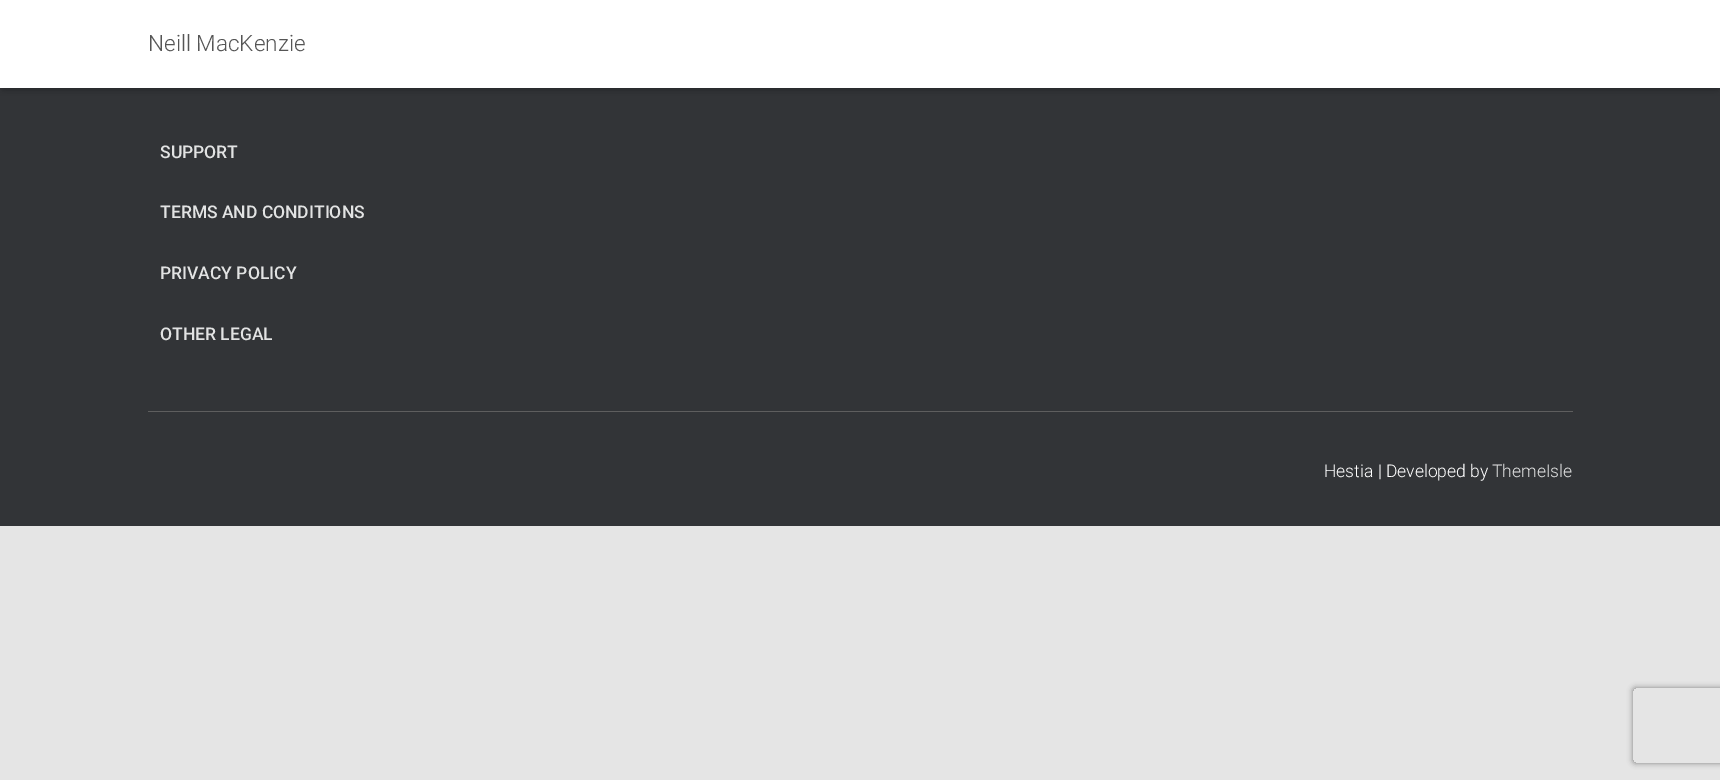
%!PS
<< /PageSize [1720 780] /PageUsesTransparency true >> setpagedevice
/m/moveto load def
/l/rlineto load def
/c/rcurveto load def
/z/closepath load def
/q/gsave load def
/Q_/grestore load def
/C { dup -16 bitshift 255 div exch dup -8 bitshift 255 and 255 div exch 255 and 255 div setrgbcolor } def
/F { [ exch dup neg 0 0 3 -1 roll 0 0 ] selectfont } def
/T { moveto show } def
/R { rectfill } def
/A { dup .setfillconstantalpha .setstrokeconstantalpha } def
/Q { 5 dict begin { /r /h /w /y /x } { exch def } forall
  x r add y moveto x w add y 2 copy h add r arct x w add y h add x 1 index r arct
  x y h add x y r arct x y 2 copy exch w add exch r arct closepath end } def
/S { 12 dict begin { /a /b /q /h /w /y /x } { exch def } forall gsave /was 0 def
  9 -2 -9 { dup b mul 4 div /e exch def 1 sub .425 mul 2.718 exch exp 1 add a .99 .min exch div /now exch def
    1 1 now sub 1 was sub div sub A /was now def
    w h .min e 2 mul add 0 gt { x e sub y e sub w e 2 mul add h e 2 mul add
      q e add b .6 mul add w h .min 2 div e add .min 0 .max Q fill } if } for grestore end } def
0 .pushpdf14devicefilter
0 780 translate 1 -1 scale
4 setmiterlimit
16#E5E5E5 C
0 0 1720 780 R
16#323437 C
0 88 1720 438 R
16#000000 C
3 8 1715 82 0 3 .1 S
0 1 1720 88 0 6 .12 S
8 9 1705 72 0 6 .42 S
16#FFFFFF C
0 0 1720 88 R
/Roboto-Light 22.5 F
16#555555 C
(Neill MacKenzie) 148 51 T
/Roboto-Medium 17.5 F
16#E2E3E3 C
(SUPPORT) 160 158 T
(TERMS AND CONDITIONS) 160 218 T
(PRIVACY POLICY) 160 279 T
(OTHER LEGAL) 160 340 T
16#5E5E5E C
148 411 1425 1 R
/Roboto-Light 17.5 F
16#FFFFFF C
(Hestia | Developed by) 1324 477 T
16#E2E3E3 C
(ThemeIsle) 1492 477 T
q
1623 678 m 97 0 l 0 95 l -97 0 l z 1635.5 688 m 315 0 l 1.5 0 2.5 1 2.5 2.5 c 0 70 l 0 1.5 -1 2.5 -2.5 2.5 c -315 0 l -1.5 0 -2.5 -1 -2.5 -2.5 c 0 -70 l 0 -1.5 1 -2.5 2.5 -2.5 c z eoclip newpath
16#808080 C
1633 688 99 75 2.5 3 1 S
Q_
.poppdf14devicefilter showpage
